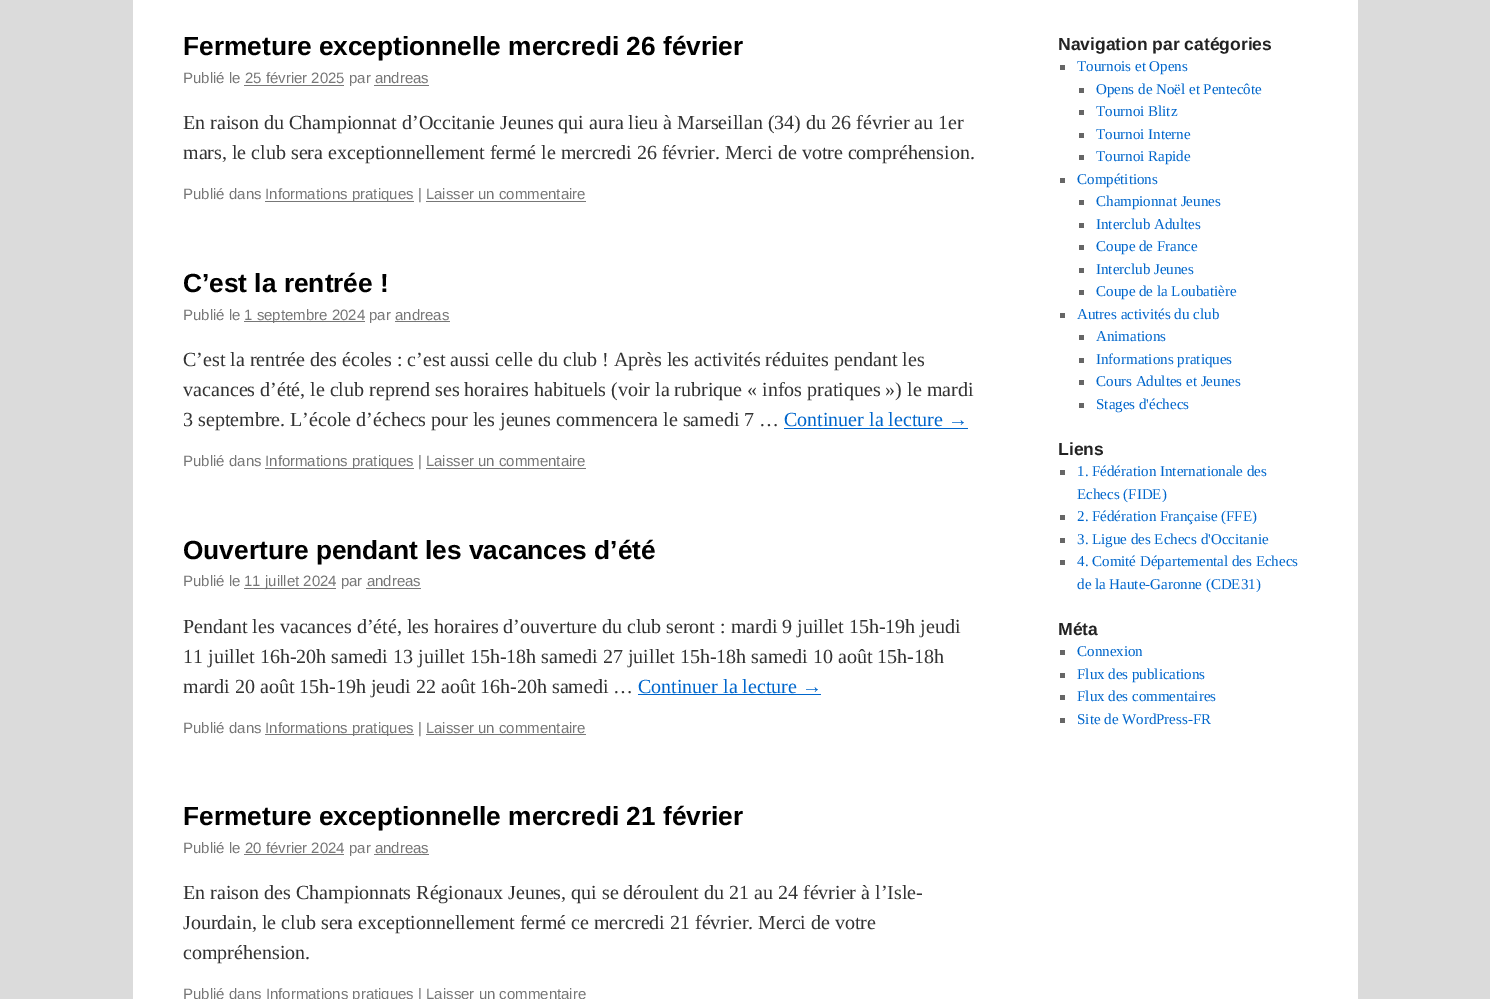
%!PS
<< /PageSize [1490 999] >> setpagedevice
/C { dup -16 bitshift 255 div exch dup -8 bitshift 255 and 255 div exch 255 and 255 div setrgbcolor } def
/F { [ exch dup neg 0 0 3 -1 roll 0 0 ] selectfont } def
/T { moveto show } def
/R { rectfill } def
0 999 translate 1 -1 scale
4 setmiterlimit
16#DBDBDB C
0 0 1490 999 R
16#FFFFFF C
133 0 1225 999 R
/LiberationSans-Bold 26.25 F
16#000000 C
(Fermeture exceptionnelle mercredi 26 février) 183 55 T
/LiberationSans-Regular 15 F
16#777777 C
(Publié le 25 février 2025 par andreas) 183 83 T
244 85 100 1 R
374 85 55 1 R
/LiberationSerif-Regular 20 F
16#333333 C
(En raison du Championnat d’Occitanie Jeunes qui aura lieu à Marseillan \(34\) du 26 février au 1er) 183 129 T
(mars, le club sera exceptionnellement fermé le mercredi 26 février. Merci de votre compréhension.) 183 159 T
/LiberationSans-Regular 15 F
16#777777 C
(Publié dans) 183 199 T
265 201 149 1 R
(Informations pratiques | Laisser un commentaire) 265 199 T
426 201 160 1 R
/LiberationSans-Bold 26.25 F
16#000000 C
(C’est la rentrée !) 183 292 T
/LiberationSans-Regular 15 F
16#777777 C
(Publié le) 183 320 T
244 321 121 1 R
(1 septembre 2024 par andreas) 244 320 T
395 321 55 1 R
/LiberationSerif-Regular 20 F
16#333333 C
(C’est la rentrée des écoles : c’est aussi celle du club ! Après les activités réduites pendant les) 183 366 T
(vacances d’été, le club reprend ses horaires habituels \(voir la rubrique « infos pratiques »\) le mardi) 183 396 T
(3 septembre. L’école d’échecs pour les jeunes commencera le samedi 7 …) 183 426 T
16#0066CC C
(Continuer la lecture →) 784 426 T
784 428 184 1 R
/LiberationSans-Regular 15 F
16#777777 C
(Publié dans) 183 466 T
265 468 149 1 R
(Informations pratiques | Laisser un commentaire) 265 466 T
426 468 160 1 R
/LiberationSans-Bold 26.25 F
16#000000 C
(Ouverture pendant les vacances d’été) 183 559 T
/LiberationSans-Regular 15 F
16#777777 C
(Publié le) 183 586 T
244 588 92 1 R
(11 juillet 2024 par andreas) 244 586 T
366 588 55 1 R
/LiberationSerif-Regular 20 F
16#333333 C
(Pendant les vacances d’été, les horaires d’ouverture du club seront : mardi 9 juillet 15h-19h jeudi) 183 633 T
(11 juillet 16h-20h samedi 13 juillet 15h-18h samedi 27 juillet 15h-18h samedi 10 août 15h-18h) 183 663 T
(mardi 20 août 15h-19h jeudi 22 août 16h-20h samedi …) 183 693 T
16#0066CC C
(Continuer la lecture →) 638 693 T
638 694 183 1 R
/LiberationSans-Regular 15 F
16#777777 C
(Publié dans) 183 733 T
265 734 149 1 R
(Informations pratiques | Laisser un commentaire) 265 733 T
426 734 160 1 R
/LiberationSans-Bold 26.25 F
16#000000 C
(Fermeture exceptionnelle mercredi 21 février) 183 825 T
/LiberationSans-Regular 15 F
16#777777 C
(Publié le 20 février 2024 par andreas) 183 853 T
244 854 100 1 R
374 854 55 1 R
/LiberationSerif-Regular 20 F
16#333333 C
(En raison des Championnats Régionaux Jeunes, qui se déroulent du 21 au 24 février à l’Isle-) 183 899 T
(Jourdain, le club sera exceptionnellement fermé ce mercredi 21 février. Merci de votre) 183 929 T
(compréhension.) 183 959 T
/LiberationSans-Regular 15 F
16#777777 C
(Publié dans Informations pratiques | Laisser un commentaire) 183 999 T
/LiberationSans-Bold 17.5 F
16#222222 C
(Navigation par catégories) 1058 50 T
16#666666 C
1060 65 5 5 R
/LiberationSerif-Regular 15 F
16#0066CC C
(Tournois et Opens) 1077 71 T
16#666666 C
1079 88 5 5 R
16#0066CC C
(Opens de Noël et Pentecôte) 1096 94 T
16#666666 C
1079 110 5 5 R
16#0066CC C
(Tournoi Blitz) 1096 116 T
16#666666 C
1079 133 5 5 R
16#0066CC C
(Tournoi Interne) 1096 139 T
16#666666 C
1079 155 5 5 R
16#0066CC C
(Tournoi Rapide) 1096 161 T
16#666666 C
1060 178 5 5 R
16#0066CC C
(Compétitions) 1077 184 T
16#666666 C
1079 200 5 5 R
16#0066CC C
(Championnat Jeunes) 1096 206 T
16#666666 C
1079 223 5 5 R
16#0066CC C
(Interclub Adultes) 1096 229 T
16#666666 C
1079 245 5 5 R
16#0066CC C
(Coupe de France) 1096 251 T
16#666666 C
1079 268 5 5 R
16#0066CC C
(Interclub Jeunes) 1096 274 T
16#666666 C
1079 290 5 5 R
16#0066CC C
(Coupe de la Loubatière) 1096 296 T
16#666666 C
1060 313 5 5 R
16#0066CC C
(Autres activités du club) 1077 319 T
16#666666 C
1079 335 5 5 R
16#0066CC C
(Animations) 1096 341 T
16#666666 C
1079 358 5 5 R
16#0066CC C
(Informations pratiques) 1096 364 T
16#666666 C
1079 380 5 5 R
16#0066CC C
(Cours Adultes et Jeunes) 1096 386 T
16#666666 C
1079 403 5 5 R
16#0066CC C
(Stages d'échecs) 1096 409 T
/LiberationSans-Bold 17.5 F
16#222222 C
(Liens) 1058 455 T
16#666666 C
1060 470 5 5 R
/LiberationSerif-Regular 15 F
16#0066CC C
(1. Fédération Internationale des) 1077 476 T
(Echecs \(FIDE\)) 1077 499 T
16#666666 C
1060 515 5 5 R
16#0066CC C
(2. Fédération Française \(FFE\)) 1077 521 T
16#666666 C
1060 538 5 5 R
16#0066CC C
(3. Ligue des Echecs d'Occitanie) 1077 544 T
16#666666 C
1060 560 5 5 R
16#0066CC C
(4. Comité Départemental des Echecs) 1077 566 T
(de la Haute-Garonne \(CDE31\)) 1077 589 T
/LiberationSans-Bold 17.5 F
16#222222 C
(Méta) 1058 635 T
16#666666 C
1060 650 5 5 R
/LiberationSerif-Regular 15 F
16#0066CC C
(Connexion) 1077 656 T
16#666666 C
1060 673 5 5 R
16#0066CC C
(Flux des publications) 1077 679 T
16#666666 C
1060 695 5 5 R
16#0066CC C
(Flux des commentaires) 1077 701 T
16#666666 C
1060 718 5 5 R
16#0066CC C
(Site de WordPress-FR) 1077 724 T
showpage
